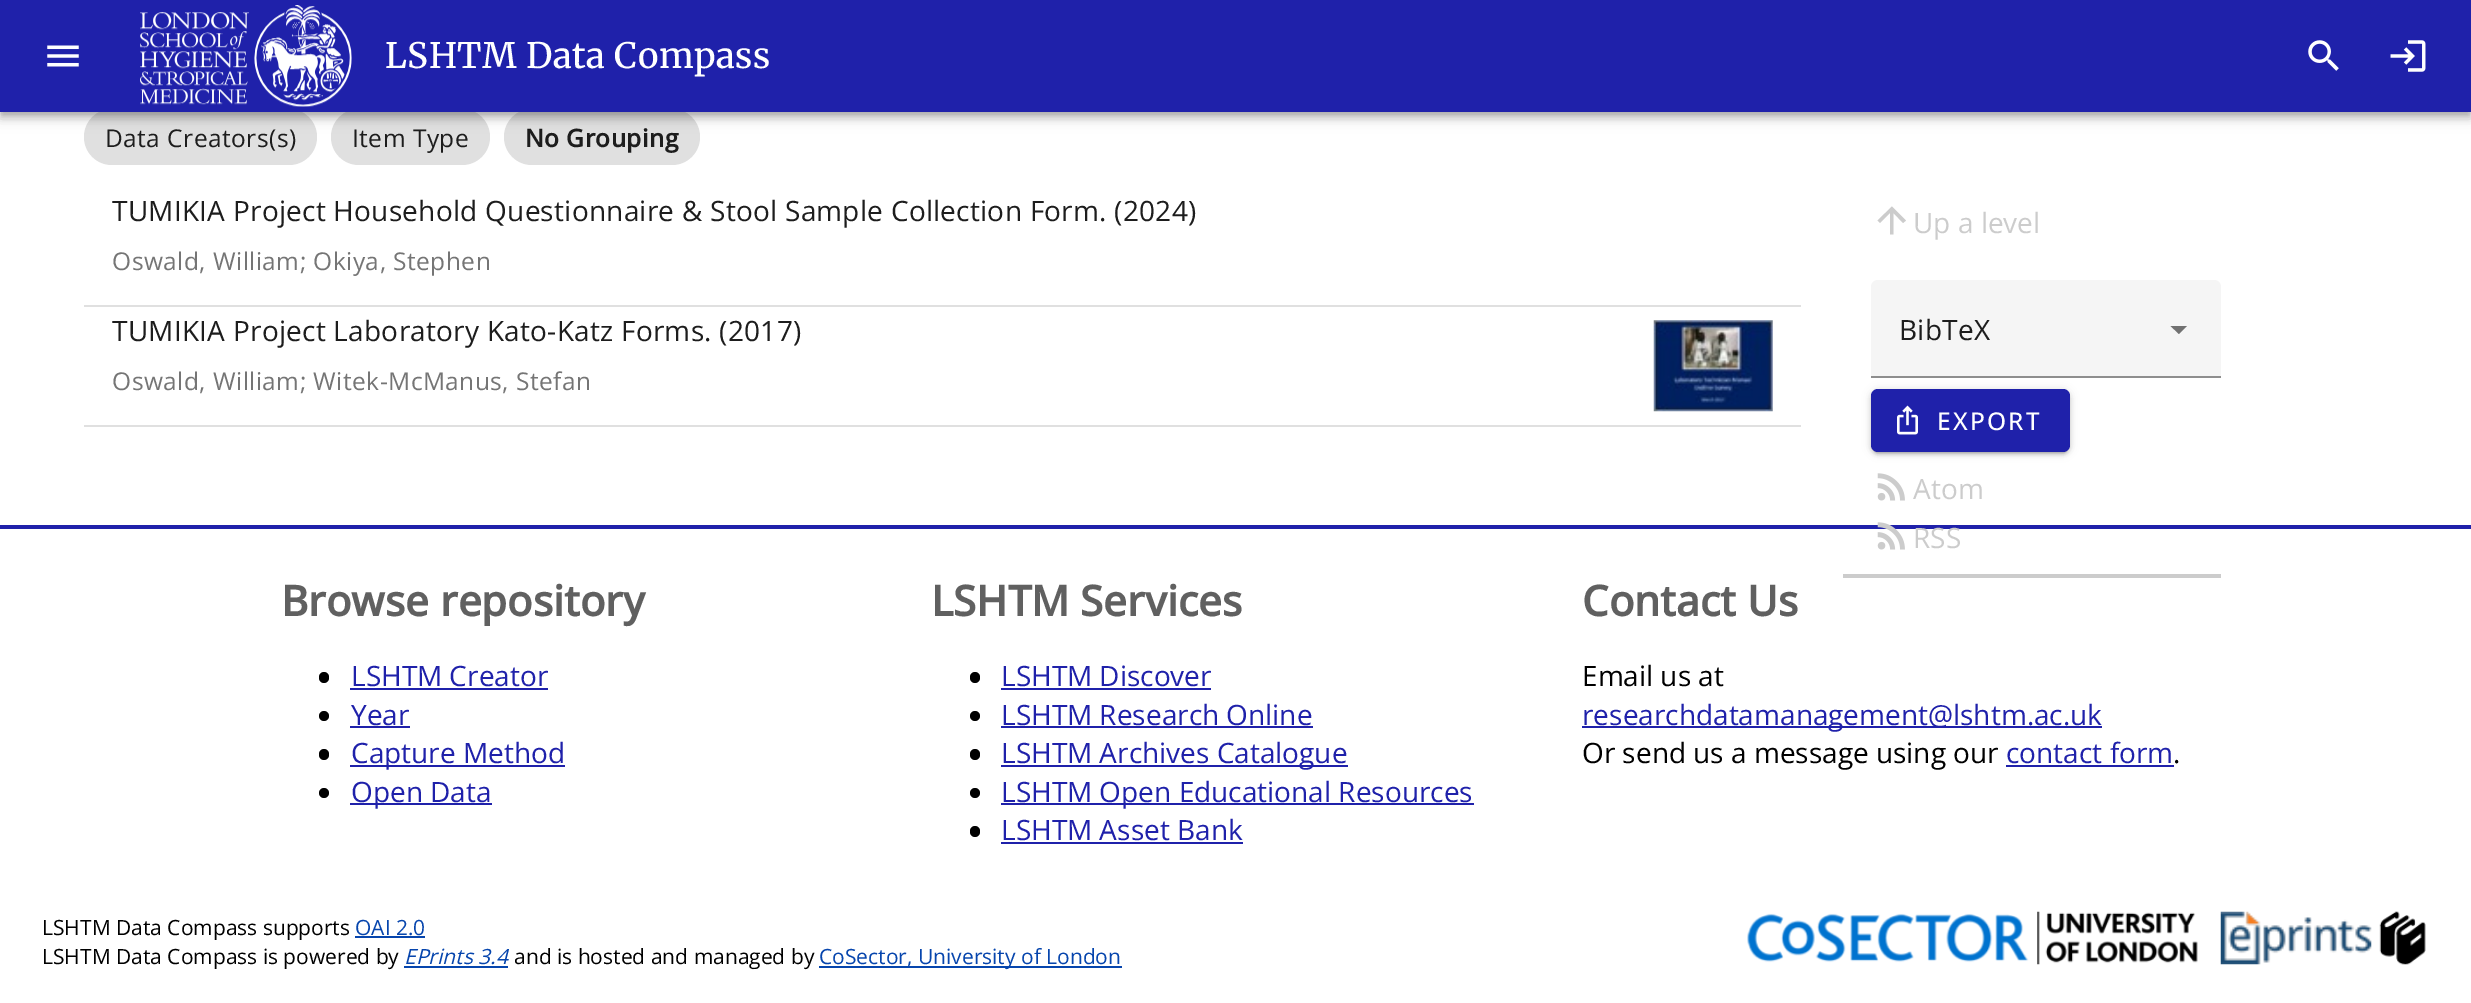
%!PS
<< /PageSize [2471 1003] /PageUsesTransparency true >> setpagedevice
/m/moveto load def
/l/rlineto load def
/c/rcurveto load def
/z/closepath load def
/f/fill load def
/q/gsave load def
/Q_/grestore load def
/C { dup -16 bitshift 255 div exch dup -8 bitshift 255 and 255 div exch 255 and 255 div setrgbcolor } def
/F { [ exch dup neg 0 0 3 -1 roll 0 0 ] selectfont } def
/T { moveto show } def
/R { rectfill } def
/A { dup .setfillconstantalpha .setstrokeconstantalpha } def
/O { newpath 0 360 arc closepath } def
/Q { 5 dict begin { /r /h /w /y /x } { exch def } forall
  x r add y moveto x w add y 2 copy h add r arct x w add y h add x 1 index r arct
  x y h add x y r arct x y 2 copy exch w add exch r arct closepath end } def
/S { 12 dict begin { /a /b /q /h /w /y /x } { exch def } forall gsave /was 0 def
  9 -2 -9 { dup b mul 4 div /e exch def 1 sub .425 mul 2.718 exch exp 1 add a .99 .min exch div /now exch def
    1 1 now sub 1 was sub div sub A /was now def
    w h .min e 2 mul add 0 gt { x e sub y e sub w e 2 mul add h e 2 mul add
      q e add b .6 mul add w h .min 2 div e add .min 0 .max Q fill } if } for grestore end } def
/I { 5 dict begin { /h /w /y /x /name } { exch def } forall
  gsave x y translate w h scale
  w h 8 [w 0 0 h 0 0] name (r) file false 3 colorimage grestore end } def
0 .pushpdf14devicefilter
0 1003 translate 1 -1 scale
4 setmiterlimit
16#FFFFFF C
0 0 2471 1003 R
16#E0E0E0 C
84 109 233 56 28 Q f
331 109 159 56 28 Q f
504 109 196 56 28 Q f
16#000000 C
0 2 2471 112 0 9 .12 S
0 7 2471 112 0 4.5 .14 S
2 5 2467 109 0 3.5 .2 S
16#1F21AA C
0 0 2471 112 R
(1.rgb) 47 45 32 22 I
(2.rgb) 140 5 212 102 I
/Merriweather-Medium 35 F
16#FFFFFF C
385 68 m .45 0 (LSHTM Data Compass) ashow
(3.rgb) 2308 40 31 31 I
(4.rgb) 2390 40 36 32 I
/OpenSans-Regular 24.5 F
16#1D1D1D C
105 147 m .45 0 (Data Creators\(s\)) ashow
352 147 m .45 0 (Item Type) ashow
/OpenSans-Bold 24.5 F
525 147 m .45 0 (No Grouping) ashow
/OpenSans-Regular 28 F
112 221 m .25 0 (TUMIKIA Project Household Questionnaire & Stool Sample Collection Form. \(2024\)) ashow
/OpenSans-Regular 24.5 F
16#757575 C
112 270 m .45 0 (Oswald, William; Okiya, Stephen) ashow
16#E0E0E0 C
84 305 1717 2 R
/OpenSans-Regular 28 F
16#1D1D1D C
112 341 m .25 0 (TUMIKIA Project Laboratory Kato-Katz Forms. \(2017\)) ashow
/OpenSans-Regular 24.5 F
16#757575 C
112 390 m .45 0 (Oswald, William; Witek-McManus, Stefan) ashow
(5.rgb) 1653 320 120 92 I
16#E0E0E0 C
84 425 1717 2 R
16#CCCCCC C
1877.5 220.5 m 14.5 -14 l 14 14 l -3 2.5 l -9.5 -10 l 0 21.5 l -3.5 0 l 0 -21.5 l -10 10 l z f
/OpenSans-Regular 28 F
(Up a level) 1913 233 T
16#F5F5F5 C
1878 280 m 336 0 l 4 0 7 3 7 7 c 0 91 l -350 0 l 0 -91 l 0 -4 3 -7 7 -7 c z f
16#1D1D1D C
1899 340 m .25 0 (BibTeX) ashow
q
2170 326 18 8 rectclip
16#717171 C
2170 325.5 m 9 8.5 l 8.5 -8.5 l z eofill
Q_
16#8E8E8E C
1871 376 350 2 R
16#000000 C
1871 390 199 63 7 4.5 .12 S
1871 392 199 63 7 2 .14 S
1874 397 193 56 4 1 .2 S
16#1F21AA C
1871 389 199 63 7 Q f
(6.rgb) 1897 405 21 30 I
/OpenSans-Medium 24.5 F
16#FFFFFF C
1937 430 m 2.25 0 (EXPORT) ashow
(7.rgb) 1877 473 28 28 I
/OpenSans-Regular 28 F
16#CCCCCC C
(Atom) 1913 499 T
16#1F21AA C
0 525 2471 4 R
(8.rgb) 1877 522 28 28 I
16#CCCCCC C
(RSS) 1913 548 T
1843 574 378 4 R
/OpenSans-Bold 42 F
16#606060 C
(Browse repository) 281 616 T
16#000000 C
319 672 10 11 5 Q f
/OpenSans-Regular 28 F
16#1F21AA C
(LSHTM Creator) 351 686 T
350 688 198 2 R
16#000000 C
324 716 5 O f
16#1F21AA C
(Year) 351 725 T
350 726 60 2 R
16#000000 C
319 749 10 11 5 Q f
16#1F21AA C
350 765 215 2 R
(Capture Method) 351 763 T
16#000000 C
324 793 5 O f
16#1F21AA C
350 803 142 2 R
(Open Data) 351 802 T
/OpenSans-Bold 42 F
16#606060 C
(LSHTM Services) 931 616 T
16#000000 C
970 672 10 11 5 Q f
/OpenSans-Regular 28 F
16#1F21AA C
(LSHTM Discover) 1001 686 T
1001 688 210 2 R
16#000000 C
975 716 5 O f
16#1F21AA C
(LSHTM Research Online) 1001 725 T
1001 726 312 2 R
16#000000 C
970 749 10 11 5 Q f
16#1F21AA C
1001 765 347 2 R
(LSHTM Archives Catalogue) 1001 763 T
16#000000 C
975 793 5 O f
16#1F21AA C
1001 803 473 2 R
(LSHTM Open Educational Resources) 1001 802 T
16#000000 C
970 826 10 11 5 Q f
16#1F21AA C
(LSHTM Asset Bank) 1001 840 T
1001 842 242 2 R
/OpenSans-Bold 42 F
16#606060 C
(Contact Us) 1582 616 T
/OpenSans-Regular 28 F
16#000000 C
(Email us at) 1582 686 T
16#1F21AA C
1582 726 520 2 R
(researchdatamanagement@lshtm.ac.uk) 1582 725 T
16#000000 C
(Or send us a message using our) 1582 763 T
16#1F21AA C
(contact form) 2006 763 T
2006 765 168 2 R
16#000000 C
(.) 2173 763 T
/OpenSans-Regular 21 F
(LSHTM Data Compass supports) 42 935 T
16#0645AD C
(OAI 2.0) 355 935 T
355 936 70 2 R
16#000000 C
(LSHTM Data Compass is powered by) 42 964 T
/OpenSans-Italic 21 F
16#0645AD C
(EPrints 3.4) 404 964 T
404 966 104 2 R
/OpenSans-Regular 21 F
16#000000 C
(and is hosted and managed by) 514 964 T
16#0645AD C
819 966 303 2 R
(CoSector, University of London) 819 964 T
(9.rgb) 1747 911 451 54 I
(10.rgb) 2220 911 152 54 I
(11.rgb) 2379 911 47 54 I
.poppdf14devicefilter showpage
